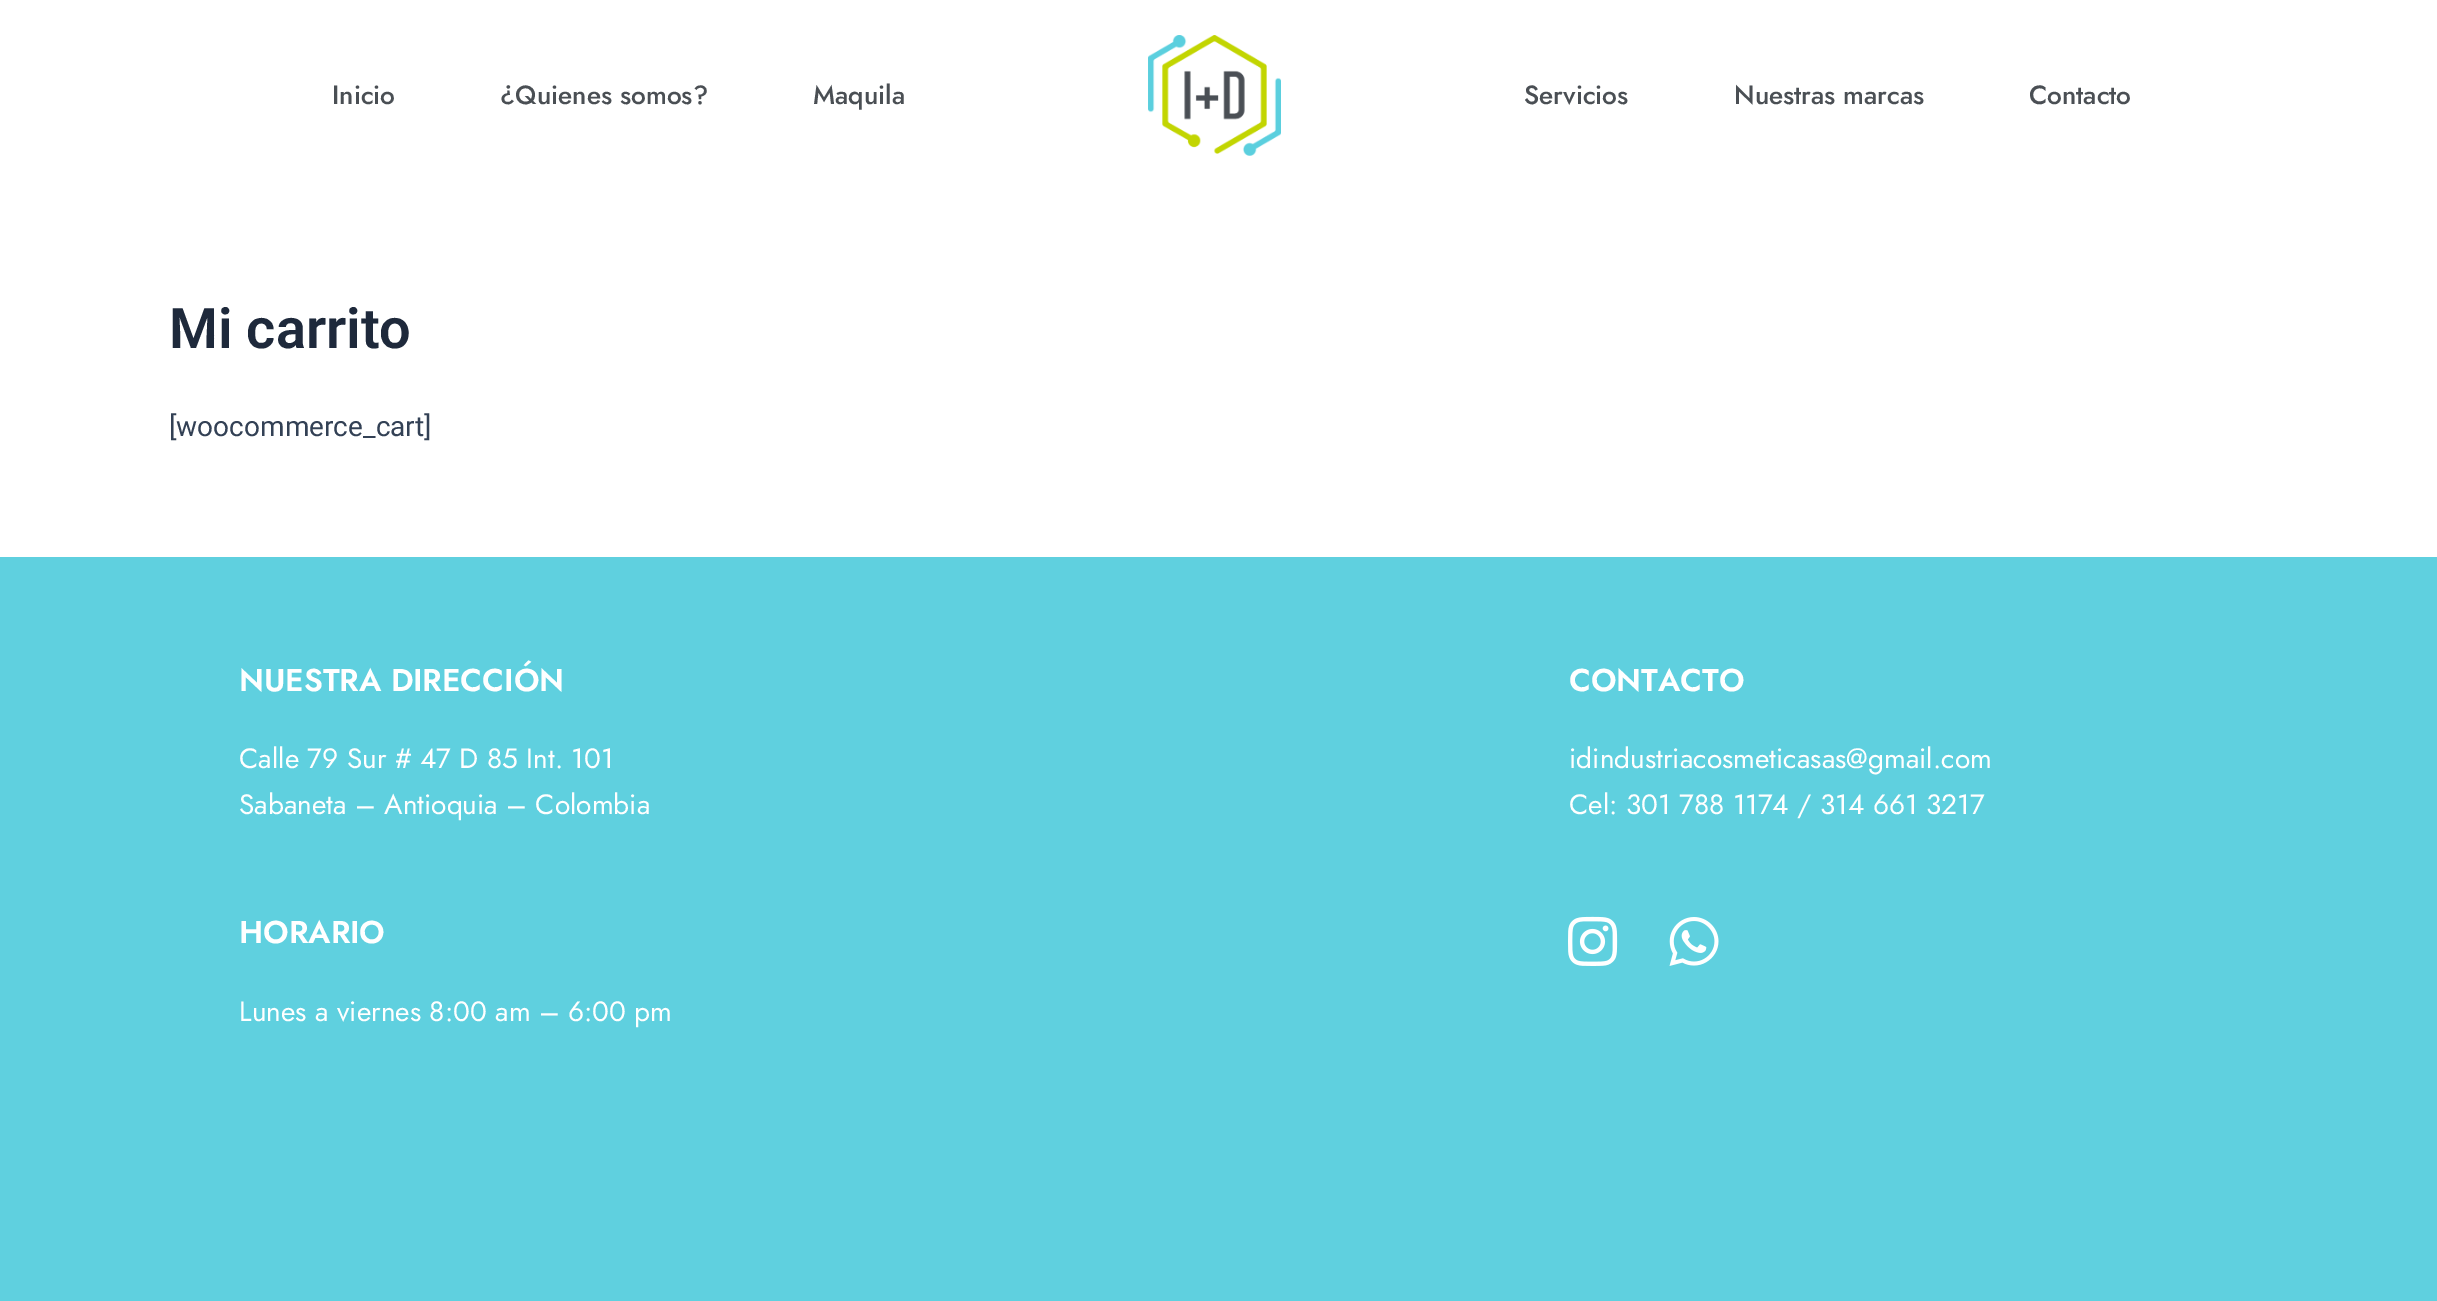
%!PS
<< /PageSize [2437 1301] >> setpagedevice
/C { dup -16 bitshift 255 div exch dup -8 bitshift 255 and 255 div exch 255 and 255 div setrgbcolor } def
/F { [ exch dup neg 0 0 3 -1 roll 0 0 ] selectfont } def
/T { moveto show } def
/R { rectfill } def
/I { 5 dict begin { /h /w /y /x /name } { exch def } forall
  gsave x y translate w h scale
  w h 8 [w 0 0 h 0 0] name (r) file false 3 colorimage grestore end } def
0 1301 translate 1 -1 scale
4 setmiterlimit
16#FFFFFF C
0 0 2437 1301 R
/Jost-Medium 26.25 F
16#4A4F54 C
(Inicio) 332 104 T
(¿Quienes somos?) 500 104 T
(Maquila) 813 104 T
(1.rgb) 1148 35 133 121 I
(Servicios) 1524 104 T
(Nuestras marcas) 1734 104 T
(Contacto) 2029 104 T
/Roboto-SemiBold 56 F
16#1E293B C
(Mi carrito) 169 348 T
/Roboto-Regular 28 F
16#334155 C
([woocommerce_cart]) 169 436 T
16#5FD0DF C
0 557 2437 744 R
/Jost-SemiBold 31.5 F
16#FFFFFF C
(NUESTRA DIRECCIÓN) 239 691 T
/Jost-Regular 28 F
(Calle 79 Sur # 47 D 85 Int. 101) 239 768 T
(Sabaneta – Antioquia – Colombia) 239 814 T
/Jost-SemiBold 31.5 F
(HORARIO) 239 943 T
/Jost-Regular 28 F
(Lunes a viernes 8:00 am – 6:00 pm) 239 1021 T
/Jost-SemiBold 31.5 F
(CONTACTO) 1569 691 T
/Jost-Regular 28 F
(idindustriacosmeticasas@gmail.com) 1569 768 T
(Cel: 301 788 1174 / 314 661 3217) 1569 814 T
(2.rgb) 1568 916 50 50 I
(3.rgb) 1669 917 50 49 I
showpage
